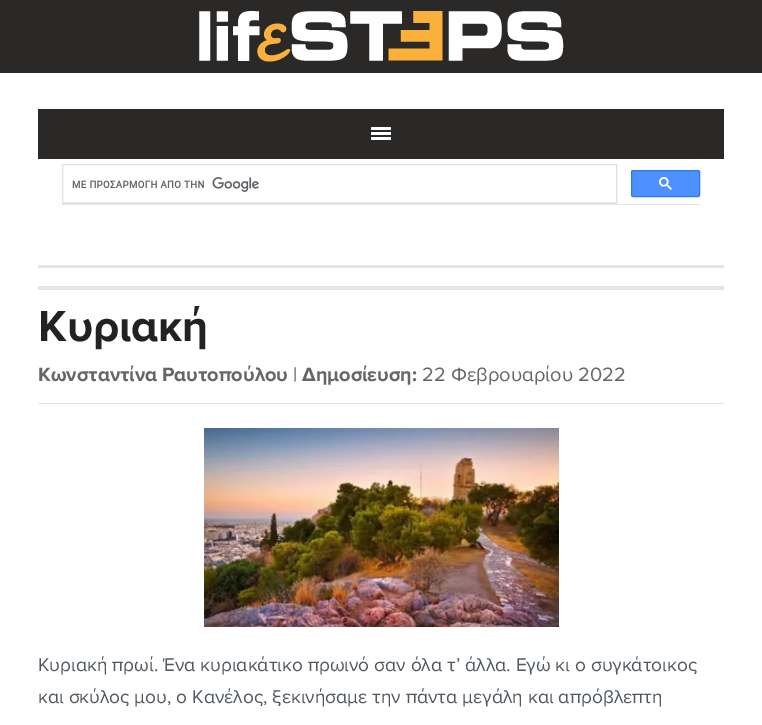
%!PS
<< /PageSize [762 725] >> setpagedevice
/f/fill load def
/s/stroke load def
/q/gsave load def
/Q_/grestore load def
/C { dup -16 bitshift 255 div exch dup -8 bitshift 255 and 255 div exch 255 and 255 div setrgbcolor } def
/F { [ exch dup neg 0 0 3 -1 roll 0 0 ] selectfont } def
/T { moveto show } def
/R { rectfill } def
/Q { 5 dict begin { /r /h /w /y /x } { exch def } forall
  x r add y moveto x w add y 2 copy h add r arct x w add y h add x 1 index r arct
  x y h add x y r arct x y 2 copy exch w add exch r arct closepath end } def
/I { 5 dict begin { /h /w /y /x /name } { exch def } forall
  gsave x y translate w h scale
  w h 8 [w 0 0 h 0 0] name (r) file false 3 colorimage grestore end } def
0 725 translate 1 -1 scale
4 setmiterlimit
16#FFFFFF C
0 0 762 725 R
16#2A2927 C
0 0 762 73 R
(1.rgb) 199 11 365 51 I
38 109 686 50 R
16#FFFFFF C
371 132 20 3 1 Q f
371 127 20 3 1 Q f
371 137 20 3 1 Q f
16#E5E5E5 C
62 204 638 1 R
16#DFE1E5 C
62.5 164.5 554 39 rectstroke
16#E5E5E5 C
63 202 553 1 R
(2.rgb) 72 177 187 15 I
16#4D90FE C
631.5 170.5 68 26 1.5 Q q f Q_
16#3079ED C
s
(3.rgb) 659 177 13 13 I
16#E5E5E5 C
38 265 686 3 R
38 286 686 4 R
/ProximaNova-Bold 45 F
16#222222 C
(Κυριακή) 38 341 T
16#E5E5E5 C
38 403 686 1 R
/ProximaNova-Bold 20 F
16#666666 C
(Κωνσταντίνα Ραυτοπούλου) 38 381 T
/ProximaNova-Regular 20 F
(|) 293 381 T
/ProximaNova-Bold 20 F
(Δημοσίευση:) 302 381 T
/ProximaNova-Regular 20 F
(22 Φεβρουαρίου 2022) 422 381 T
(4.rgb) 204 428 355 199 I
/ProximaNova-Regular 19.1 F
16#50575F C
(Κυριακή πρωί. Ένα κυριακάτικο πρωινό σαν όλα τ’ άλλα. Εγώ κι ο συγκάτοικος) 38 671 T
(και σκύλος μου, ο Κανέλος, ξεκινήσαμε την πάντα μεγάλη και απρόβλεπτη) 38 703 T
showpage
